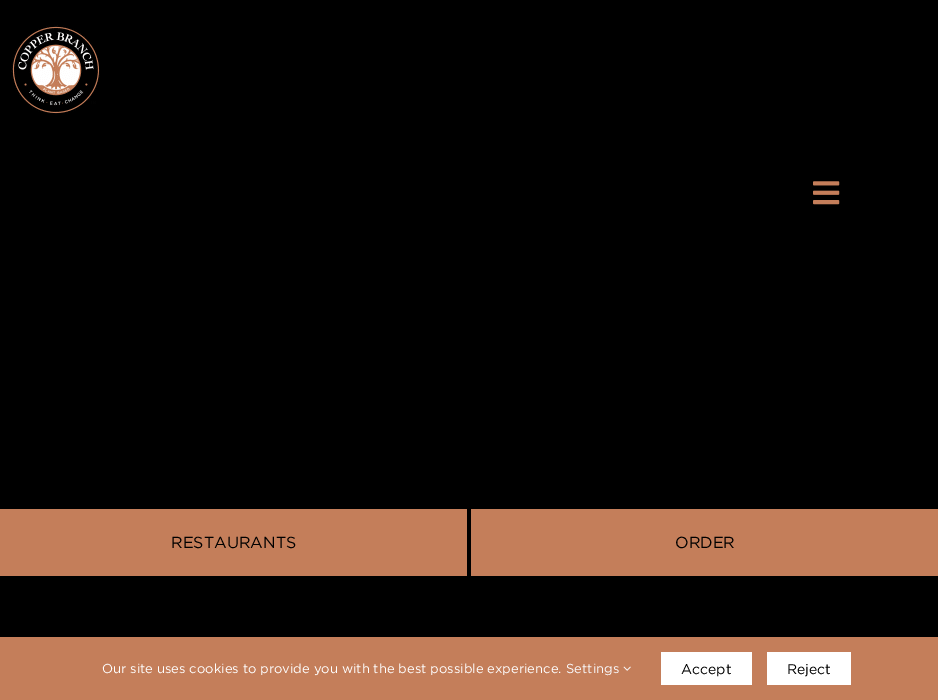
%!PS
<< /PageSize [938 700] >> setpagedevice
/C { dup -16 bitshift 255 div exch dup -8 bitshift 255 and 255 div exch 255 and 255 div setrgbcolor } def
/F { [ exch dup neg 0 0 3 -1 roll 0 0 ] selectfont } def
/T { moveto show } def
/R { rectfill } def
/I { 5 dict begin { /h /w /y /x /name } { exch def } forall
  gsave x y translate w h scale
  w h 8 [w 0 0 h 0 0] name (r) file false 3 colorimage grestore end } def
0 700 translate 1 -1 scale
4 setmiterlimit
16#000000 C
0 0 938 700 R
(1.rgb) 11 25 89 89 I
(2.rgb) 813 181 27 24 I
16#C47E5A C
0 509 467 67 R
/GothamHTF-Regular 16 F
16#000000 C
(RESTAURANTS) 171 548 T
16#C47E5A C
471 509 467 67 R
16#000000 C
(ORDER) 675 548 T
16#C47E5A C
0 637 938 63 R
/GothamHTF-Regular 13 F
16#FFFFFF C
(Our site uses cookies to provide you with the best possible experience.) 102 673 T
16#F9F9FB C
(Settings) 566 673 T
(3.rgb) 623 666 8 5 I
16#FFFFFF C
661 652 91 33 R
/GothamHTF-Regular 14 F
16#000000 C
(Accept) 681 674 T
16#FFFFFF C
767 652 84 33 R
16#000000 C
(Reject) 787 674 T
showpage
